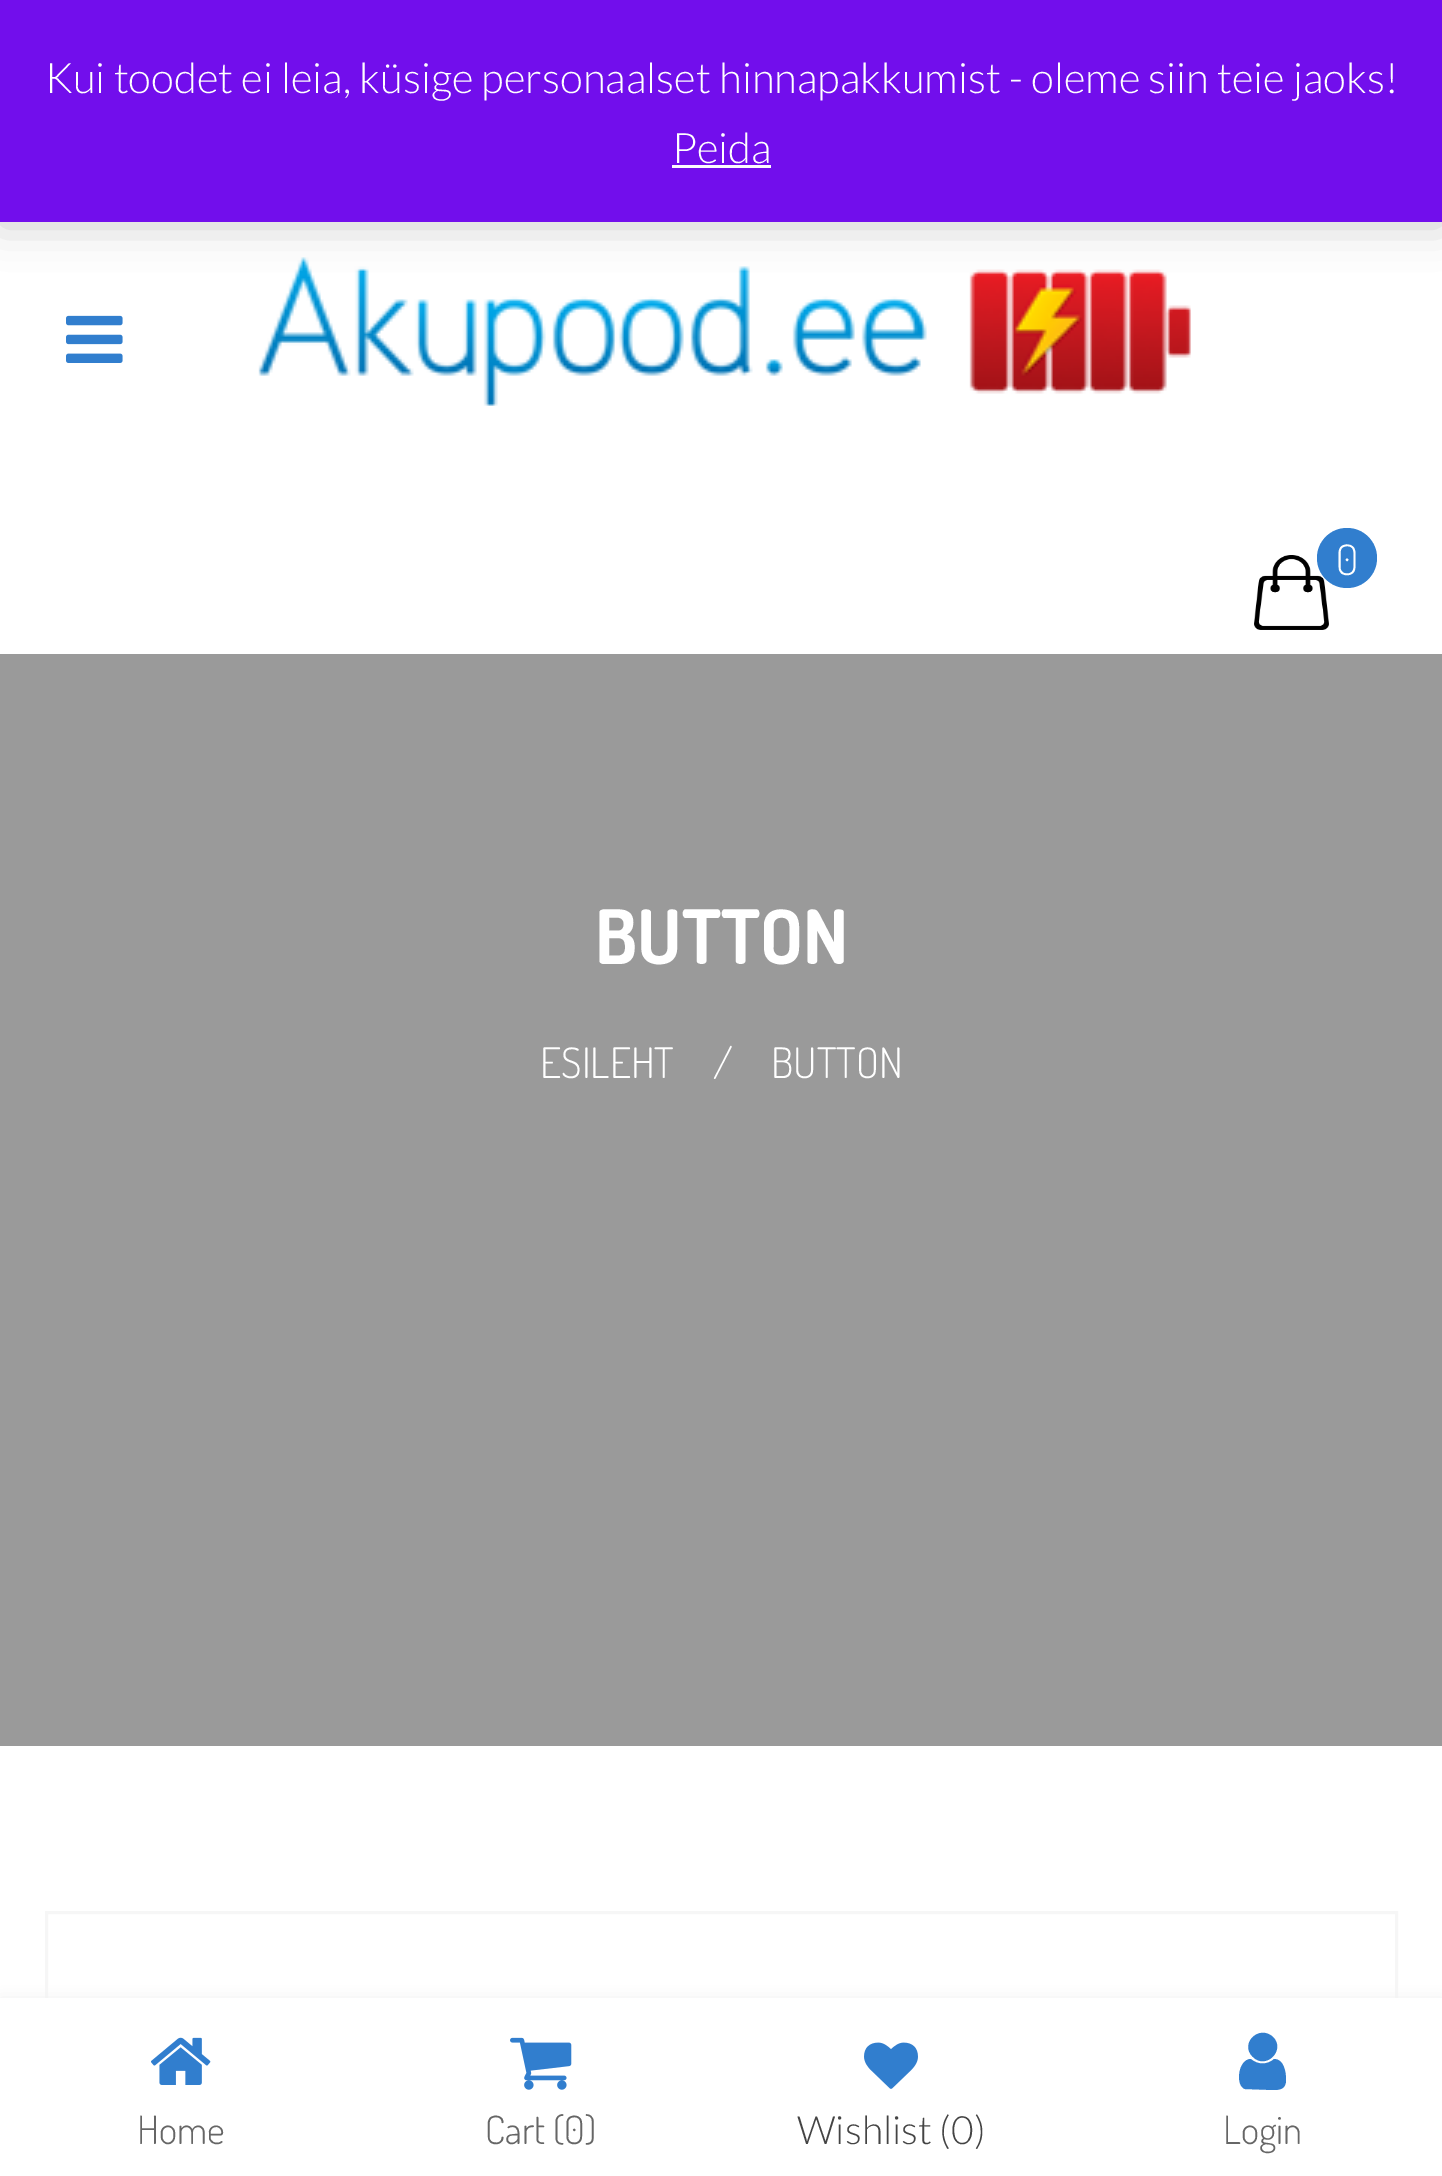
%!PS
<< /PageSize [1442 2176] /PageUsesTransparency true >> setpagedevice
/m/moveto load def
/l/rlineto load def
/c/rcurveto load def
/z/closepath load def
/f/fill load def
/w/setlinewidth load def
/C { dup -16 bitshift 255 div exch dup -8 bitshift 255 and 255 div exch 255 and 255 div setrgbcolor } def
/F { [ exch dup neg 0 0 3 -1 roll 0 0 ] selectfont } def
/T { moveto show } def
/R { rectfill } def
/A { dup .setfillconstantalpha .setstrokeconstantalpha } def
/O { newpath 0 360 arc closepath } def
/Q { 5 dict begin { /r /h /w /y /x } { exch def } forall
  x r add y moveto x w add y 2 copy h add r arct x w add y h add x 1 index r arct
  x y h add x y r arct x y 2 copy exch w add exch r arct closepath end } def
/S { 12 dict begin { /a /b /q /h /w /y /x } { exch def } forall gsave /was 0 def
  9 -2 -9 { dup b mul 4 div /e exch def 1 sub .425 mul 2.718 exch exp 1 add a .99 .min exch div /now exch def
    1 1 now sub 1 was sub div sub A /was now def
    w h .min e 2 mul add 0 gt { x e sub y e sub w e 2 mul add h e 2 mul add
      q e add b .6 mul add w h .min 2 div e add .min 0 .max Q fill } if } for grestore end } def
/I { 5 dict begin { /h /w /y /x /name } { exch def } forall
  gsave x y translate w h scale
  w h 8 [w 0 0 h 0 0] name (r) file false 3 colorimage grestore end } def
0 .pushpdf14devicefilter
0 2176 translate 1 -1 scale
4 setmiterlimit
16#FFFFFF C
0 0 1442 2176 R
(2.rgb) 258 257 933 149 I
16#000000 C
0 3 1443 222 0 21 .2 S
16#720EEC C
0 0 1442 222 R
/Lato-Light 42 F
16#FFFFFF C
(Kui toodet ei leia, küsige personaalset hinnapakkumist - oleme siin teie jaoks!) 45 93 T
(Peida) 672 163 T
16#FCFBFE C
672 165 99 3 R
(1.rgb) 66 315 57 48 I
(3.rgb) 1254 555 75 75 I
16#317ECE C
1347 558 30 O f
/Dosis-Light 42 F
16#FFFFFF C
(0) 1336 575 T
16#9A9A9A C
0 654 1442 1092 R
/Dosis-Bold 75 F
16#FFFFFF C
(BUTTON) 595 964 T
/Dosis-Light 42 F
(ESILEHT) 540 1078 T
(/) 713 1078 T
(BUTTON) 771 1078 T
16#F6F6F6 C
3 w
46.5 1912.5 1350 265 rectstroke
16#F1F1F1 C
0 1998 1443 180 0 7.5 1 S
16#FFFFFF C
0 1998 1442 178 R
(4.rgb) 151 2037 60 48 I
/Dosis-Light 39 F
16#666666 C
(Home) 137 2144 T
(5.rgb) 510 2037 62 53 I
(Cart \(0\)) 485 2144 T
(6.rgb) 864 2042 54 47 I
/Lato-Light 39 F
16#444444 C
(Wishlist \(0\)) 797 2144 T
16#317ECE C
1286 2080 m 0 9 -6 10 -13 10 c -28 -1 l -10 -3 -7 -30 6 -30 c 6 6 17 6 23 0 c 10 0 12 13 12 21 c z 1273 2037 m 13 13 -7 33 -20 20 c -14 -13 6 -33 20 -20 c z f
/Dosis-Light 39 F
16#666666 C
(Login) 1223 2144 T
.poppdf14devicefilter showpage
